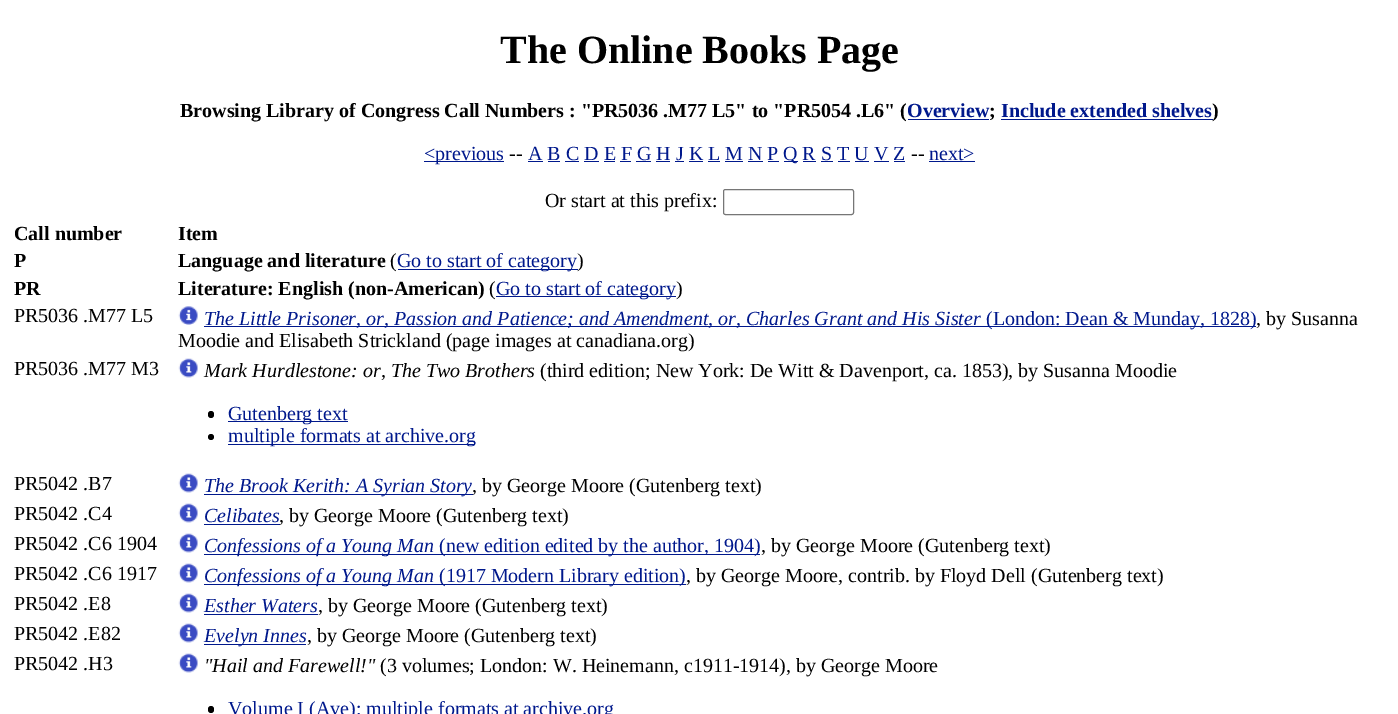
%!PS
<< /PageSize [1398 714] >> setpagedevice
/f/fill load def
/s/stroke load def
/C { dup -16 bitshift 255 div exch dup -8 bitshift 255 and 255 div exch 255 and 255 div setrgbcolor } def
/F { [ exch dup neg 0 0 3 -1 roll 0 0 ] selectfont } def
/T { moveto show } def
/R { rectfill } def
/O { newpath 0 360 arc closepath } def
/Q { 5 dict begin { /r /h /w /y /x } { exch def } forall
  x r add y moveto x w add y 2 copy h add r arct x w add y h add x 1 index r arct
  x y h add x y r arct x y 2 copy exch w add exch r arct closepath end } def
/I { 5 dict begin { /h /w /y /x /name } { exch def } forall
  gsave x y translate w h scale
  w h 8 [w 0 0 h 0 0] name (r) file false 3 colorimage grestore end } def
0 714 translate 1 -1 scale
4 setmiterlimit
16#FFFFFF C
0 0 1398 714 R
/LiberationSerif-Bold 40 F
16#000000 C
(The Online Books Page) 500 63 T
/LiberationSerif-Bold 20 F
(Browsing Library of Congress Call Numbers : "PR5036 .M77 L5" to "PR5054 .L6" \() 180 117 T
16#00188C C
(Overview) 907 117 T
16#000000 C
(;) 989 117 T
16#00188C C
908 119 81 1 R
(Include extended shelves) 1001 117 T
1001 119 212 1 R
16#000000 C
(\)) 1212 117 T
16#00188C C
424 161 80 1 R
/LiberationSerif-Regular 20 F
(<previous) 424 160 T
16#000000 C
(--) 509 160 T
16#00188C C
(A B C D E F G H J K L M N P) 528 160 T
528 161 15 1 R
784 161 14 1 R
(Q R S T U V Z) 783 160 T
16#000000 C
(--) 911 160 T
16#00188C C
(next>) 929 160 T
929 161 46 1 R
548 161 12 1 R
565 161 14 1 R
584 161 15 1 R
604 161 11 1 R
620 161 11 1 R
636 161 15 1 R
656 161 14 1 R
675 161 9 1 R
689 161 14 1 R
708 161 12 1 R
725 161 18 1 R
748 161 15 1 R
768 161 11 1 R
803 161 13 1 R
821 161 12 1 R
838 161 12 1 R
855 161 14 1 R
874 161 15 1 R
894 161 11 1 R
16#000000 C
(Or start at this prefix:) 545 207 T
16#767676 C
723.5 189.5 130 25 2 Q s
/LiberationSerif-Bold 20 F
16#000000 C
(Call number) 14 240 T
(Item) 178 240 T
(P) 14 267 T
(Language and literature) 178 267 T
/LiberationSerif-Regular 20 F
(\() 390 267 T
16#00188C C
398 269 180 1 R
(Go to start of category) 397 267 T
16#000000 C
(\)) 577 267 T
/LiberationSerif-Bold 20 F
(PR) 14 295 T
(Literature: English \(non-American\)) 178 295 T
/LiberationSerif-Regular 20 F
(\() 489 295 T
16#00188C C
496 296 180 1 R
(Go to start of category) 496 295 T
16#000000 C
(\)) 676 295 T
(PR5036 .M77 L5) 14 322 T
(1.rgb) 178 306 20 19 I
16#00188C C
204 326 776 1 R
/LiberationSerif-Italic 20 F
(The Little Prisoner, or, Passion and Patience; and Amendment, or, Charles Grant and His Sister) 204 325 T
980 326 276 1 R
/LiberationSerif-Regular 20 F
(\(London: Dean & Munday, 1828\)) 986 325 T
16#000000 C
(, by Susanna) 1256 325 T
(Moodie and Elisabeth Strickland \(page images at canadiana.org\)) 178 347 T
(PR5036 .M77 M3) 14 375 T
(2.rgb) 178 358 20 20 I
/LiberationSerif-Italic 20 F
(Mark Hurdlestone: or, The Two Brothers) 204 377 T
/LiberationSerif-Regular 20 F
(\(third edition; New York: De Witt & Davenport, ca. 1853\), by Susanna Moodie) 540 377 T
208 411 6 7 3 Q f
16#00188C C
228 421 120 1 R
(Gutenberg text) 228 420 T
16#000000 C
211 437 3 O f
16#00188C C
228 444 247 1 R
(multiple formats at archive.org) 228 442 T
16#000000 C
(PR5042 .B7) 14 490 T
(2.rgb) 178 473 20 20 I
16#00188C C
204 494 269 1 R
/LiberationSerif-Italic 20 F
(The Brook Kerith: A Syrian Story) 204 492 T
/LiberationSerif-Regular 20 F
16#000000 C
(, by George Moore \(Gutenberg text\)) 472 492 T
(PR5042 .C4) 14 520 T
(2.rgb) 178 503 20 20 I
/LiberationSerif-Italic 20 F
16#00188C C
(Celibates) 204 522 T
204 524 76 1 R
/LiberationSerif-Regular 20 F
16#000000 C
(, by George Moore \(Gutenberg text\)) 279 522 T
(PR5042 .C6 1904) 14 550 T
(2.rgb) 178 533 20 20 I
16#00188C C
204 554 556 1 R
/LiberationSerif-Italic 20 F
(Confessions of a Young Man) 204 552 T
/LiberationSerif-Regular 20 F
(\(new edition edited by the author, 1904\)) 439 552 T
16#000000 C
(, by George Moore \(Gutenberg text\)) 761 552 T
(PR5042 .C6 1917) 14 580 T
(2.rgb) 178 563 20 20 I
16#00188C C
204 584 482 1 R
/LiberationSerif-Italic 20 F
(Confessions of a Young Man) 204 582 T
/LiberationSerif-Regular 20 F
(\(1917 Modern Library edition\)) 439 582 T
16#000000 C
(, by George Moore, contrib. by Floyd Dell \(Gutenberg text\)) 686 582 T
(PR5042 .E8) 14 610 T
(2.rgb) 178 593 20 20 I
/LiberationSerif-Italic 20 F
16#00188C C
(Esther Waters) 204 612 T
204 614 114 1 R
/LiberationSerif-Regular 20 F
16#000000 C
(, by George Moore \(Gutenberg text\)) 318 612 T
(PR5042 .E82) 14 640 T
(2.rgb) 178 623 20 20 I
16#00188C C
204 644 102 1 R
/LiberationSerif-Italic 20 F
(Evelyn Innes) 204 642 T
/LiberationSerif-Regular 20 F
16#000000 C
(, by George Moore \(Gutenberg text\)) 307 642 T
(PR5042 .H3) 14 670 T
(2.rgb) 178 653 20 20 I
/LiberationSerif-Italic 20 F
("Hail and Farewell!") 204 672 T
/LiberationSerif-Regular 20 F
(\(3 volumes; London: W. Heinemann, c1911-1914\), by George Moore) 380 672 T
208 706 6 7 3 Q f
16#00188C C
(Volume I \(Ave\): multiple formats at archive.org) 228 715 T
showpage
